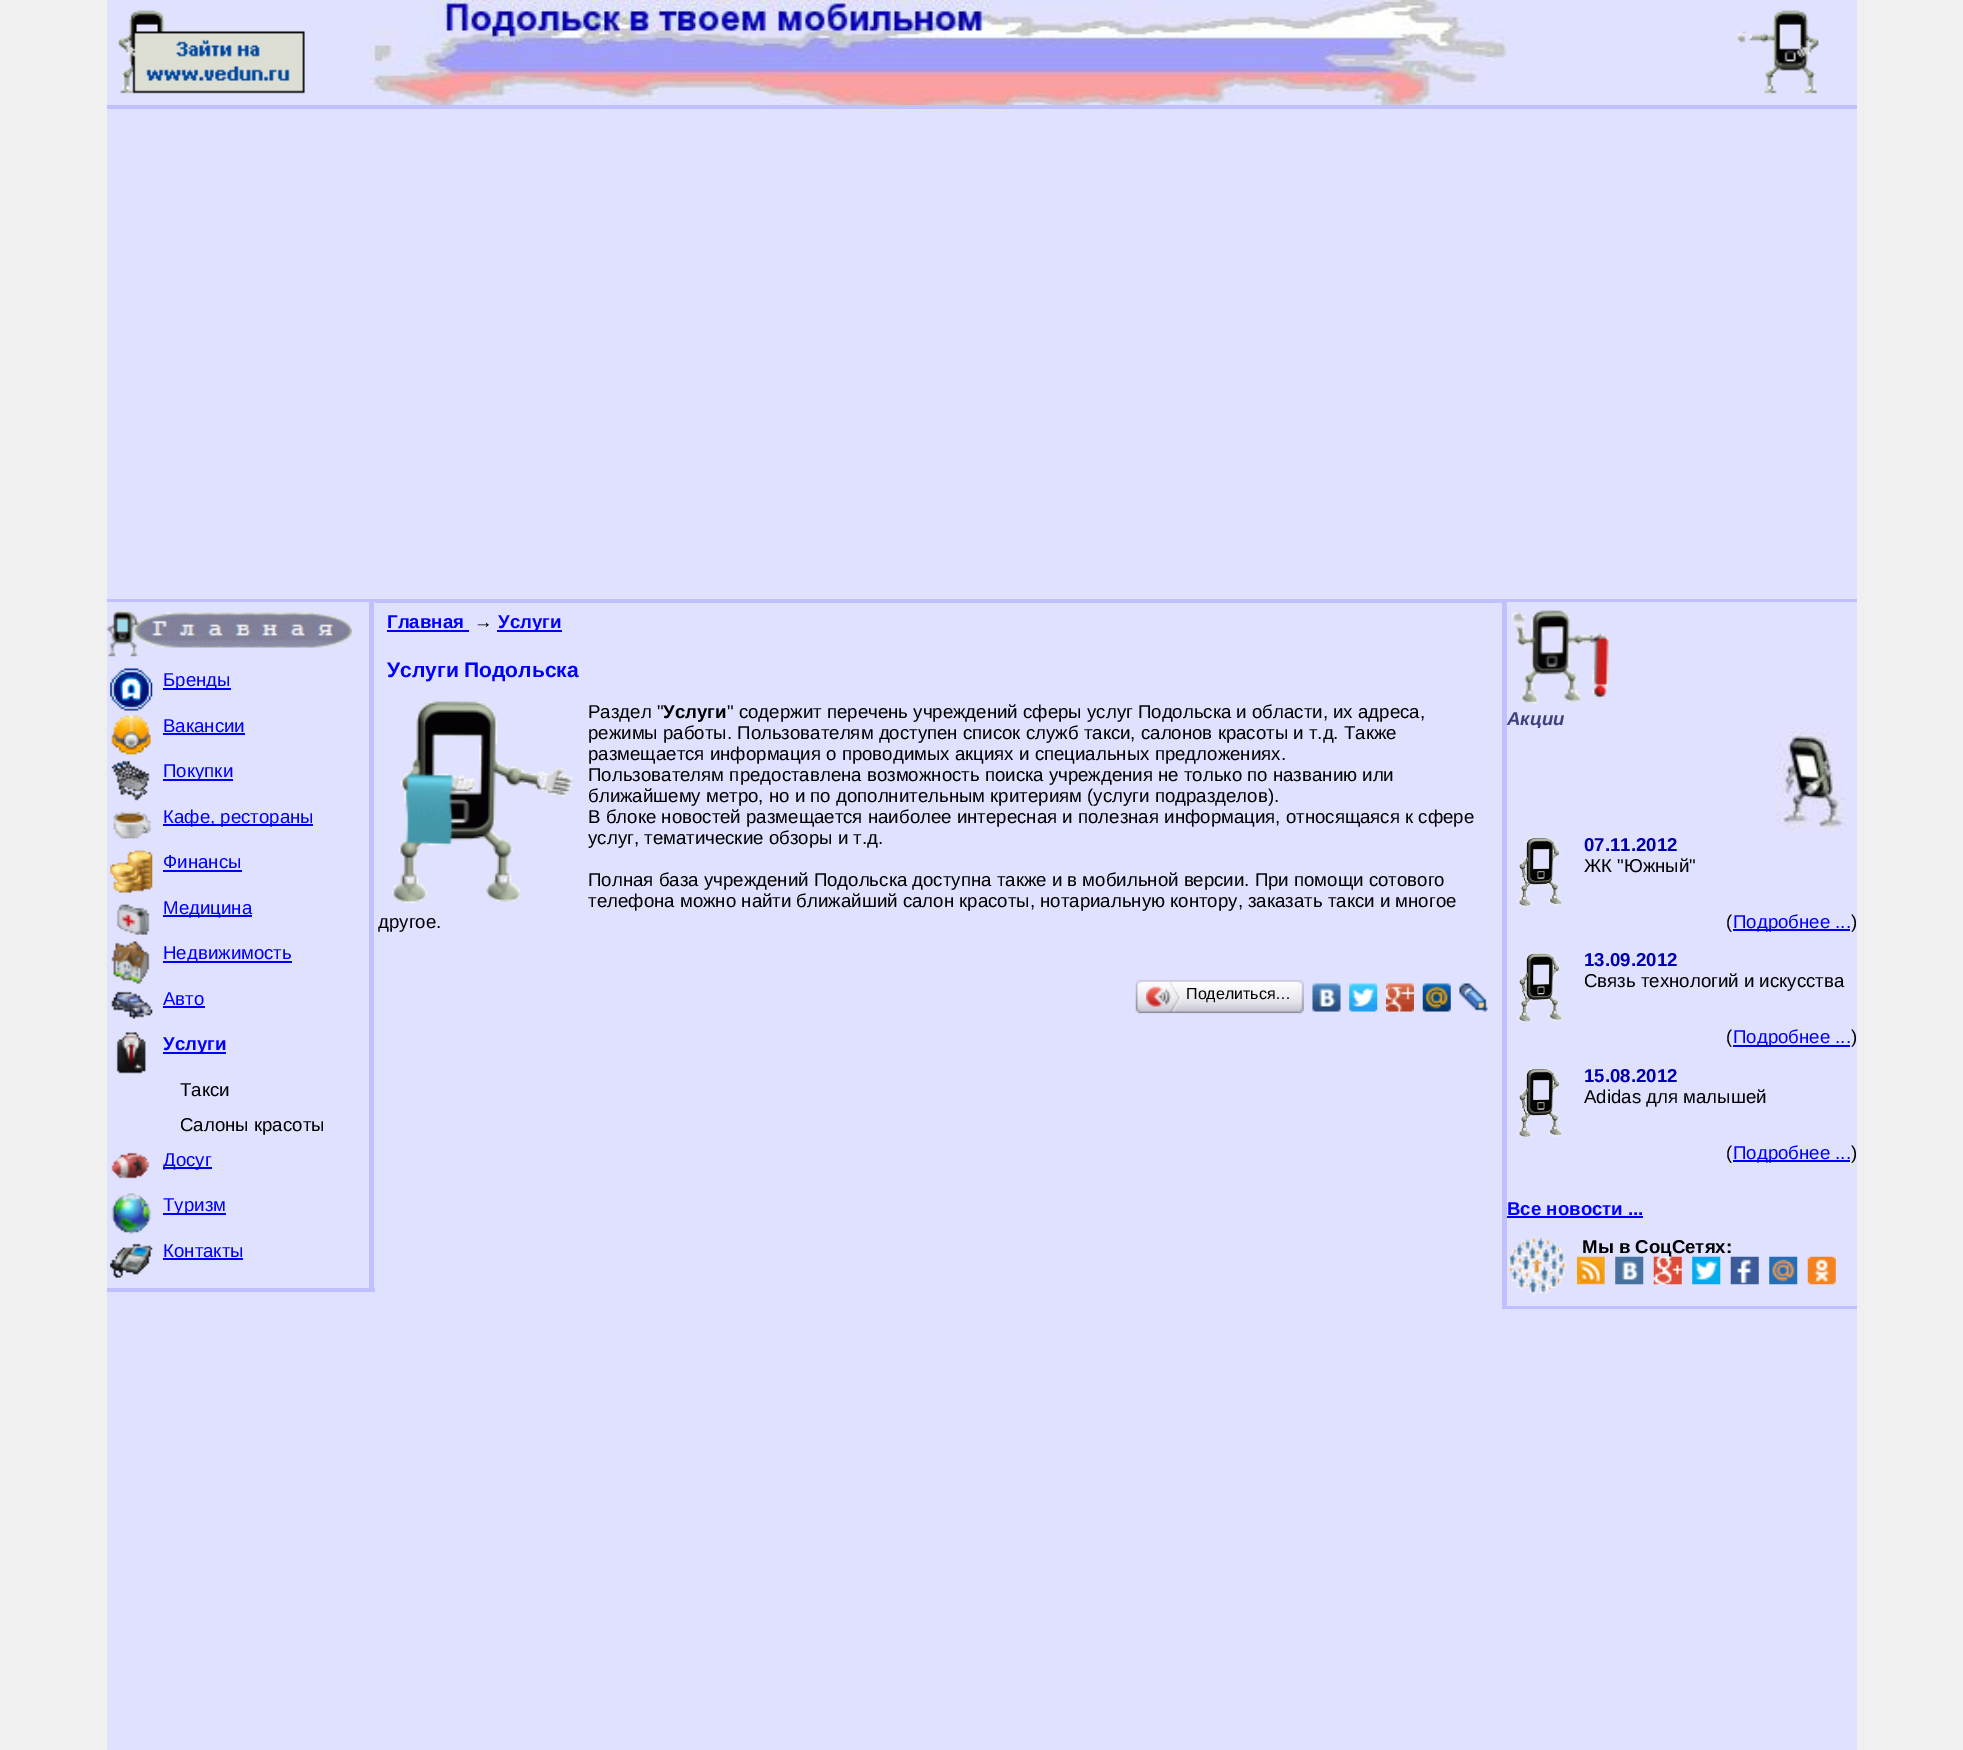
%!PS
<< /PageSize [1963 1750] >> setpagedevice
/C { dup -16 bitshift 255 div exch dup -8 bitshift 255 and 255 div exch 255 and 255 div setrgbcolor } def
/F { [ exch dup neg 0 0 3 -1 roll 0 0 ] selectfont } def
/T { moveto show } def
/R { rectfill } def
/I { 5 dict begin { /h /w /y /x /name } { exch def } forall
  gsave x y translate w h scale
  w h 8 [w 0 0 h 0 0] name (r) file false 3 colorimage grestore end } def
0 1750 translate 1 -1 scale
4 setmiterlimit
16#F0F0F0 C
0 0 1963 1750 R
16#C0C0FF C
107 105 1750 4 R
16#E0E0FF C
107 0 262 105 R
(1.rgb) 117 10 188 84 I
(2.rgb) 369 0 1138 105 I
1507 0 350 105 R
(3.rgb) 1737 10 83 84 I
107 109 1750 1641 R
16#C0C0FF C
107 599 1750 4 R
16#E0E0FF C
107 602 268 1 R
16#C0C0FF C
369 602 5 690 R
107 1288 268 4 R
(4.rgb) 106 610 246 47 I
(5.rgb) 110 668 43 43 I
16#0000FF C
163 688 68 2 R
/LiberationSans-Regular 18.65 F
(Бренды) 163 686 T
(6.rgb) 111 715 40 40 I
(Вакансии) 163 732 T
163 733 82 2 R
(7.rgb) 111 760 39 41 I
163 779 70 2 R
(Покупки) 163 777 T
(8.rgb) 113 811 38 28 I
163 824 150 2 R
(Кафе, рестораны) 163 823 T
(9.rgb) 110 850 43 43 I
(Финансы) 163 868 T
163 870 79 2 R
(10.rgb) 116 904 34 31 I
163 915 89 2 R
(Медицина) 163 914 T
(11.rgb) 111 941 39 43 I
163 961 129 2 R
(Недвижимость) 163 959 T
(12.rgb) 111 991 42 28 I
(Авто) 163 1005 T
163 1006 42 2 R
(13.rgb) 116 1032 30 42 I
163 1052 63 2 R
/LiberationSans-Bold 18.65 F
(Услуги) 163 1050 T
/LiberationSans-Regular 18.65 F
16#000000 C
(Такси) 180 1096 T
(Салоны красоты) 180 1131 T
(14.rgb) 111 1152 39 27 I
16#0000FF C
163 1167 49 2 R
(Досуг) 163 1166 T
(15.rgb) 111 1193 40 42 I
163 1213 63 2 R
(Туризм) 163 1211 T
(16.rgb) 110 1243 43 35 I
(Контакты) 163 1257 T
163 1258 80 2 R
/LiberationSans-Bold 18.65 F
(Главная) 387 628 T
387 630 82 2 R
16#000000 C
(→) 474 628 T
16#0000FF C
497 630 65 2 R
(Услуги) 498 628 T
/LiberationSans-Bold 21 F
(Услуги Подольска) 387 677 T
(17.rgb) 391 701 182 203 I
/LiberationSans-Regular 18.65 F
16#000000 C
(Раздел ") 588 718 T
/LiberationSans-Bold 18.65 F
(Услуги) 663 718 T
/LiberationSans-Regular 18.65 F
(" содержит перечень учреждений сферы услуг Подольска и области, их адреса,) 727 718 T
(режимы работы. Пользователям доступен список служб такси, салонов красоты и т.д. Также) 588 739 T
(размещается информация о проводимых акциях и специальных предложениях.) 588 760 T
(Пользователям предоставлена возможность поиска учреждения не только по названию или) 588 781 T
(ближайшему метро, но и по дополнительным критериям \(услуги подразделов\).) 588 802 T
(В блоке новостей размещается наиболее интересная и полезная информация, относящаяся к сфере) 588 823 T
(услуг, тематические обзоры и т.д.) 588 844 T
(Полная база учреждений Подольска доступна также и в мобильной версии. При помощи сотового) 588 886 T
(телефона можно найти ближайший салон красоты, нотариальную контору, заказать такси и многое) 588 907 T
(другое.) 378 928 T
(18.rgb) 1141 980 158 34 I
(19.rgb) 1135 980 6 34 I
(20.rgb) 1146 982 35 30 I
/LiberationSans-Regular 16 F
(Поделиться…) 1186 999 T
(21.rgb) 1298 980 6 34 I
(22.rgb) 1312 983 29 29 I
(23.rgb) 1349 983 29 29 I
(24.rgb) 1386 983 28 29 I
(25.rgb) 1422 983 29 29 I
(26.rgb) 1459 983 29 29 I
16#E0E0FF C
1507 602 350 1 R
16#C0C0FF C
1502 1306 355 3 R
1502 602 5 707 R
(27.rgb) 1511 610 98 94 I
/LiberationSans-BoldItalic 18.65 F
16#404080 C
(Акции) 1507 725 T
16#E0E0FF C
1537 728 3 1 R
(28.rgb) 1776 728 70 105 I
(29.rgb) 1515 836 47 71 I
/LiberationSans-Bold 18.65 F
16#0000B0 C
(07.11.2012) 1584 851 T
/LiberationSans-Regular 18.65 F
16#000000 C
(ЖК "Южный") 1584 872 T
(\() 1726 928 T
16#0000FF C
1733 929 117 2 R
(Подробнее ...) 1733 928 T
16#000000 C
(\)) 1851 928 T
(30.rgb) 1517 952 45 70 I
/LiberationSans-Bold 18.65 F
16#0000B0 C
(13.09.2012) 1584 966 T
/LiberationSans-Regular 18.65 F
16#000000 C
(Связь технологий и искусства) 1584 987 T
(\() 1726 1043 T
16#0000FF C
1733 1045 117 2 R
(Подробнее ...) 1733 1043 T
16#000000 C
(\)) 1851 1043 T
(29.rgb) 1515 1067 47 71 I
/LiberationSans-Bold 18.65 F
16#0000B0 C
(15.08.2012) 1584 1082 T
/LiberationSans-Regular 18.65 F
16#000000 C
(Adidas для малышей) 1584 1103 T
(\() 1726 1159 T
16#0000FF C
1733 1160 117 2 R
(Подробнее ...) 1733 1159 T
16#000000 C
(\)) 1851 1159 T
/LiberationSans-Bold 18.65 F
16#0000FF C
(Все новости ...) 1507 1215 T
1507 1216 136 2 R
(31.rgb) 1508 1237 59 59 I
16#000000 C
(Мы в СоцСетях:) 1582 1253 T
(32.rgb) 1576 1256 29 29 I
(33.rgb) 1615 1256 29 29 I
(34.rgb) 1653 1256 29 29 I
(35.rgb) 1692 1256 29 29 I
(36.rgb) 1730 1256 29 29 I
(37.rgb) 1769 1256 29 29 I
(38.rgb) 1807 1256 29 29 I
showpage
